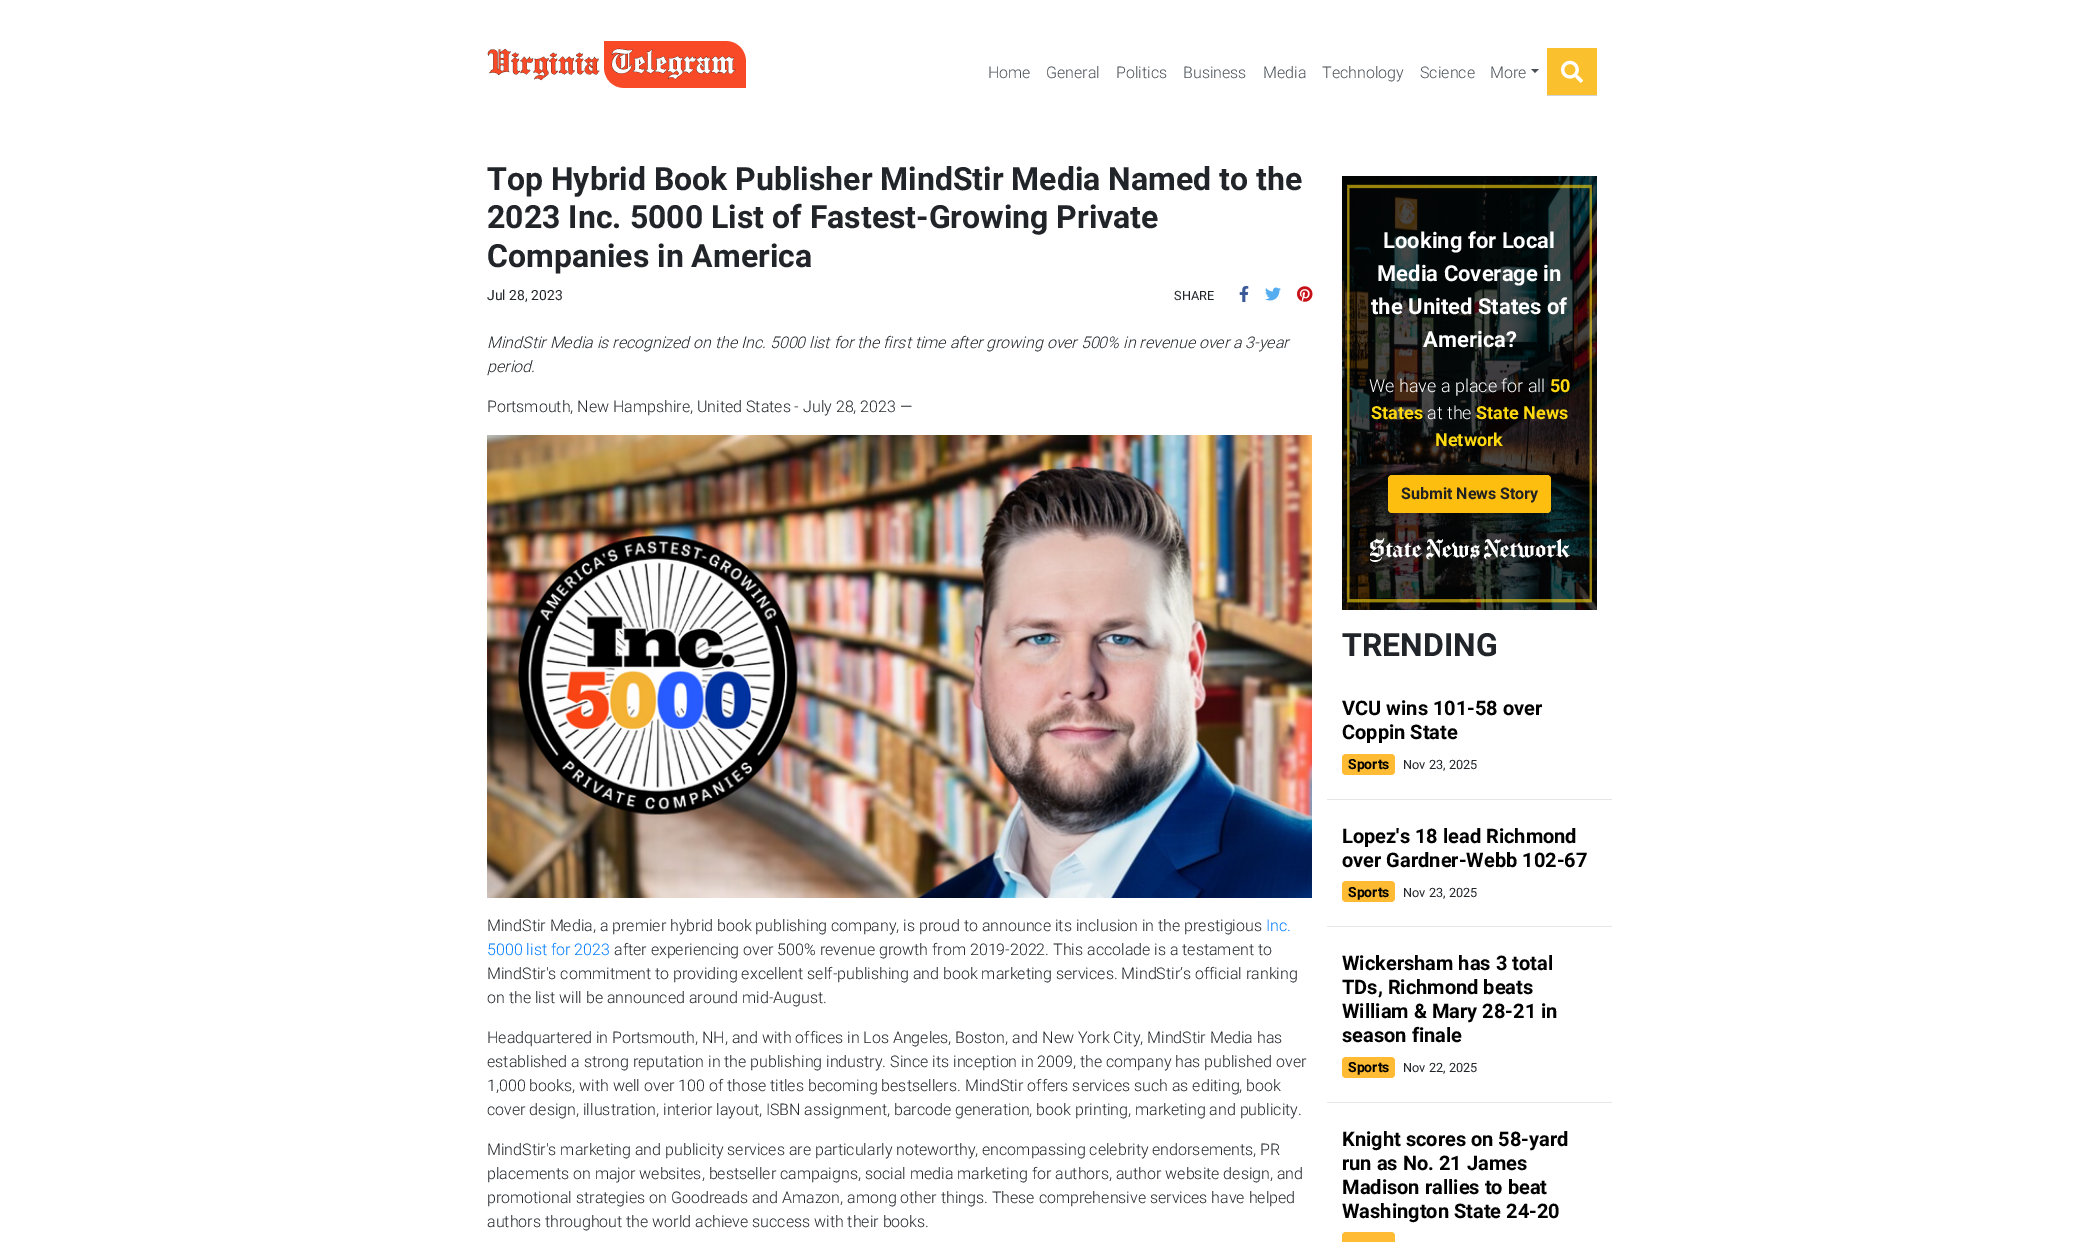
%!PS
<< /PageSize [2084 1242] /PageUsesTransparency true >> setpagedevice
/m/moveto load def
/l/rlineto load def
/z/closepath load def
/f/fill load def
/C { dup -16 bitshift 255 div exch dup -8 bitshift 255 and 255 div exch 255 and 255 div setrgbcolor } def
/F { [ exch dup neg 0 0 3 -1 roll 0 0 ] selectfont } def
/T { moveto show } def
/R { rectfill } def
/A { dup .setfillconstantalpha .setstrokeconstantalpha } def
/Q { 5 dict begin { /r /h /w /y /x } { exch def } forall
  x r add y moveto x w add y 2 copy h add r arct x w add y h add x 1 index r arct
  x y h add x y r arct x y 2 copy exch w add exch r arct closepath end } def
/S { 12 dict begin { /a /b /q /h /w /y /x } { exch def } forall gsave /was 0 def
  9 -2 -9 { dup b mul 4 div /e exch def 1 sub .425 mul 2.718 exch exp 1 add a .99 .min exch div /now exch def
    1 1 now sub 1 was sub div sub A /was now def
    w h .min e 2 mul add 0 gt { x e sub y e sub w e 2 mul add h e 2 mul add
      q e add b .6 mul add w h .min 2 div e add .min 0 .max Q fill } if } for grestore end } def
/I { 5 dict begin { /h /w /y /x /name } { exch def } forall
  gsave x y translate w h scale
  w h 8 [w 0 0 h 0 0] name (r) file false 3 colorimage grestore end } def
0 .pushpdf14devicefilter
0 1242 translate 1 -1 scale
4 setmiterlimit
16#FFFFFF C
0 0 2084 1242 R
(1.rgb) 487 41 259 47 I
/Roboto-Light 16 F
16#495057 C
(Home) 988 78 T
(General) 1046 78 T
(Politics) 1116 78 T
(Business) 1183 78 T
(Media) 1263 78 T
(Technology) 1322 78 T
(Science) 1420 78 T
(More) 1490 78 T
1531 69 m 8 0 l -4 4 l z f
16#FBC02D C
1547 48 50 47 R
(2.rgb) 1561 60 22 23 I
16#CED4DA C
1547 95 50 1 R
/Roboto-Bold 32 F
16#212529 C
(Top Hybrid Book Publisher MindStir Media Named to the) 487 190 T
(2023 Inc. 5000 List of Fastest-Growing Private) 487 228 T
(Companies in America) 487 267 T
/Roboto-Regular 14 F
(Jul 28, 2023) 487 300 T
/Roboto-Regular 12.75 F
(SHARE) 1174 300 T
(3.rgb) 1239 286 10 16 I
(4.rgb) 1265 287 16 14 I
(5.rgb) 1297 286 16 16 I
/Roboto-LightItalic 16 F
(MindStir Media is recognized on the Inc. 5000 list for the first time after growing over 500% in revenue over a 3-year) 487 348 T
(period.) 487 372 T
/Roboto-Light 16 F
(Portsmouth, New Hampshire, United States - July 28, 2023 —) 487 412 T
(6.rgb) 487 435 825 463 I
(MindStir Media, a premier hybrid book publishing company, is proud to announce its inclusion in the prestigious) 487 931 T
16#007BFF C
(Inc.) 1266 931 T
(5000 list for 2023) 487 955 T
16#212529 C
(after experiencing over 500% revenue growth from 2019-2022. This accolade is a testament to) 614 955 T
(MindStir's commitment to providing excellent self-publishing and book marketing services. MindStir’s official ranking) 487 979 T
(on the list will be announced around mid-August.) 487 1003 T
(Headquartered in Portsmouth, NH, and with offices in Los Angeles, Boston, and New York City, MindStir Media has) 487 1043 T
(established a strong reputation in the publishing industry. Since its inception in 2009, the company has published over) 487 1067 T
(1,000 books, with well over 100 of those titles becoming bestsellers. MindStir offers services such as editing, book) 487 1091 T
(cover design, illustration, interior layout, ISBN assignment, barcode generation, book printing, marketing and publicity.) 487 1115 T
(MindStir's marketing and publicity services are particularly noteworthy, encompassing celebrity endorsements, PR) 487 1155 T
(placements on major websites, bestseller campaigns, social media marketing for authors, author website design, and) 487 1179 T
(promotional strategies on Goodreads and Amazon, among other things. These comprehensive services have helped) 487 1203 T
(authors throughout the world achieve success with their books.) 487 1227 T
(7.rgb) 1342 176 255 434 I
/Roboto-Bold 22 F
16#FFFFFF C
(Looking for Local) 1383 248 T
(Media Coverage in) 1377 281 T
(the United States of) 1371 314 T
(America?) 1423 347 T
/Roboto-Light 18 F
(We have a place for all) 1369 392 T
/Roboto-Bold 18 F
16#FFD910 C
(50) 1550 392 T
(States) 1371 419 T
/Roboto-Light 18 F
16#FFFFFF C
(at the) 1427 419 T
/Roboto-Bold 18 F
16#FFD910 C
(State News) 1476 419 T
(Network) 1435 446 T
16#000000 C
1388 476 163 38 4 8 .25 S
16#FEBE10 C
1388 475 163 38 4 Q f
/Roboto-Bold 16 F
16#212121 C
(Submit News Story) 1401 499 T
(8.rgb) 1370 538 200 24 I
/Roboto-Bold 32 F
16#212529 C
(TRENDING) 1342 656 T
/Roboto-Bold 20 F
16#000000 C
(VCU wins 101-58 over) 1342 715 T
(Coppin State) 1342 739 T
16#FFBB33 C
1342 754 53 21 4 Q f
/Roboto-Bold 14 F
16#000000 C
(Sports) 1348 769 T
/Roboto-Regular 12.75 F
16#212529 C
(Nov 23, 2025) 1403 769 T
16#E6E6E6 C
1327 799 285 1 R
/Roboto-Bold 20 F
16#000000 C
(Lopez's 18 lead Richmond) 1342 843 T
(over Gardner-Webb 102-67) 1342 867 T
16#FFBB33 C
1342 881 53 21 4 Q f
/Roboto-Bold 14 F
16#000000 C
(Sports) 1348 897 T
/Roboto-Regular 12.75 F
16#212529 C
(Nov 23, 2025) 1403 897 T
16#E6E6E6 C
1327 926 285 1 R
/Roboto-Bold 20 F
16#000000 C
(Wickersham has 3 total) 1342 970 T
(TDs, Richmond beats) 1342 994 T
(William & Mary 28-21 in) 1342 1018 T
(season finale) 1342 1042 T
16#FFBB33 C
1342 1057 53 21 4 Q f
/Roboto-Bold 14 F
16#000000 C
(Sports) 1348 1072 T
/Roboto-Regular 12.75 F
16#212529 C
(Nov 22, 2025) 1403 1072 T
16#E6E6E6 C
1327 1102 285 1 R
/Roboto-Bold 20 F
16#000000 C
(Knight scores on 58-yard) 1342 1146 T
(run as No. 21 James) 1342 1170 T
(Madison rallies to beat) 1342 1194 T
(Washington State 24-20) 1342 1218 T
16#FFBB33 C
1342 1232 53 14 4 Q f
.poppdf14devicefilter showpage
